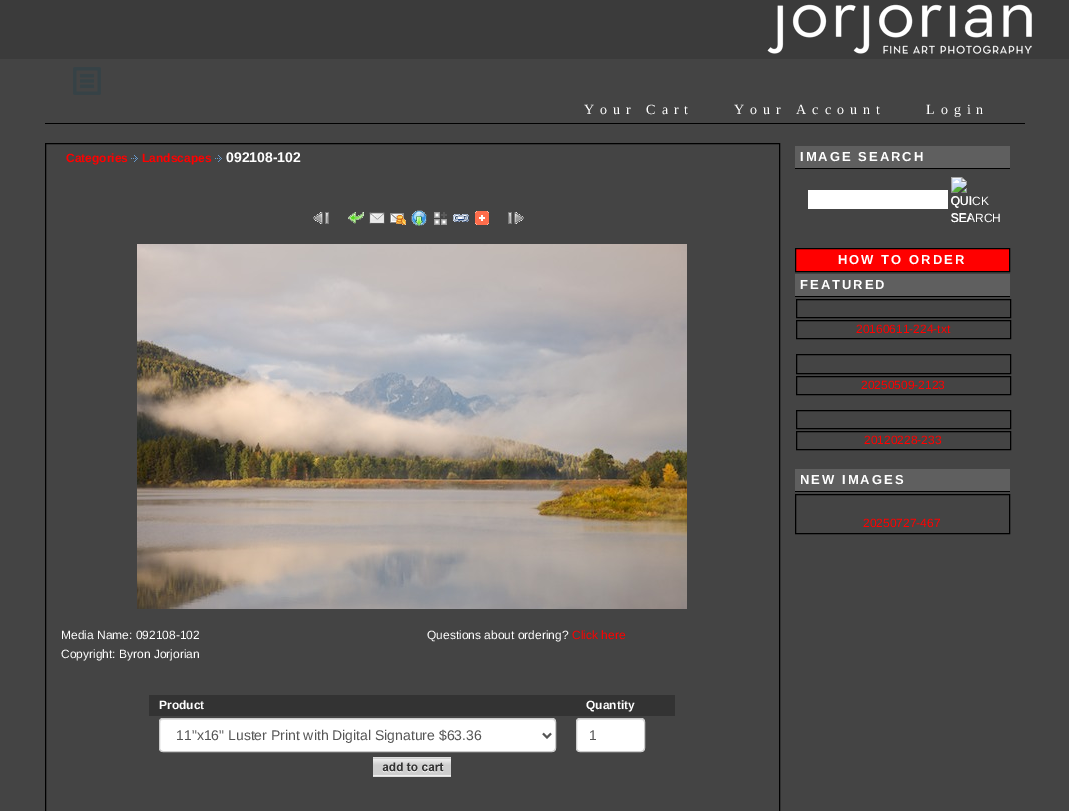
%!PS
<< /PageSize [1069 811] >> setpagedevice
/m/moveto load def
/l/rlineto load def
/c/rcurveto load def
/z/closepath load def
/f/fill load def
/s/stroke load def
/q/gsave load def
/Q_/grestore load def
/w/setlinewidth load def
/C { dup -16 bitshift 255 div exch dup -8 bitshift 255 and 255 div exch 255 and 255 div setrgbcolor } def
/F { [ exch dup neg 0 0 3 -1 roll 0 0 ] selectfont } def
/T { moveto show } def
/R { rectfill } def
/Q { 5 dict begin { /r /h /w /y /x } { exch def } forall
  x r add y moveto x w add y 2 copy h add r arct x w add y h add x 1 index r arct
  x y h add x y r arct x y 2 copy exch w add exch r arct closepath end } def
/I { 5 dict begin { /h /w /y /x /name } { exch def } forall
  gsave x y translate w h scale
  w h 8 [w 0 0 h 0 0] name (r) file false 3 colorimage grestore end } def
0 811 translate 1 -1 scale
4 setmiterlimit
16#444444 C
0 0 1069 811 R
16#3B3B3B C
0 0 1069 59 R
(1.rgb) 767 4 265 50 I
(2.rgb) 73 67 28 28 I
/LiberationSerif-Regular 14 F
16#FFFFFF C
584 114 m 6 0 (Your Cart) ashow
734 114 m 6 0 (Your Account) ashow
926 114 m 6 0 (Login) ashow
16#000000 C
45 123 980 1 R
45.5 143.5 734 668 rectstroke
/LiberationSans-Bold 12 F
16#FF0000 C
(Categories) 66 162 T
(3.rgb) 131 155 7 7 I
(Landscapes) 142 162 T
(3.rgb) 215 155 7 7 I
/LiberationSans-Bold 14 F
16#FFFFFF C
(092108-102) 226 162 T
(4.rgb) 313 212 16 12 I
(5.rgb) 348 212 16 12 I
(6.rgb) 369 212 16 12 I
(7.rgb) 390 213 16 12 I
(8.rgb) 411 210 16 16 I
(9.rgb) 434 212 13 13 I
(10.rgb) 453 214 16 8 I
(11.rgb) 475 211 14 14 I
(12.rgb) 508 212 16 12 I
(13.rgb) 137 244 550 365 I
/LiberationSans-Regular 12 F
(Media Name: 092108-102) 61 639 T
(Questions about ordering?) 427 639 T
16#FF0000 C
(Click here) 572 639 T
16#FFFFFF C
(Copyright: Byron Jorjorian) 61 658 T
16#333333 C
149 695 526 21 R
/LiberationSans-Bold 12 F
16#FFFFFF C
(Product) 159 709 T
(Quantity) 586 709 T
159 718 397 34 4 Q f
16#ECECEC C
163 720 m 389 0 l 2 0 3 1 3 3 c 0 -2 -1 -4 -3 -4 c -389 0 l -2 1 l -1 3 l 0 -2 1 -3 3 -3 c z f
16#CCCCCC C
159.5 718.5 396 33 3.5 Q s
16#555555 C
2 w
543 733.5 m 4 4 l 4 -4 l s
/LiberationSans-Regular 14 F
(11"x16" Luster Print with Digital Signature $63.36) 176 740 T
16#FFFFFF C
576 718 69 34 4 Q f
16#ECECEC C
580 720 m 61 0 l 2 0 3 1 3 3 c 0 -7 -9 -4 -13 -4 c -41 0 l -4 0 -13 -3 -13 4 c 0 -2 1 -3 3 -3 c z f
16#CCCCCC C
1 w
576.5 718.5 68 33 3.5 Q s
16#555555 C
(1) 589 740 T
(14.rgb) 373 757 78 20 I
16#5F5F5F C
795 146 215 22 R
16#000000 C
795 168 215 1 R
/LiberationSans-Bold 13 F
16#FFFFFF C
800 161 m 2 0 (IMAGE SEARCH) ashow
808 190 140 19 R
(15.rgb) 951 177 20 45 I
/LiberationSans-Regular 12 F
(QUICK) 951 205 T
(SEARCH) 951 222 T
16#FF0000 C
795.5 248.5 m 214 0 l 0 23 l -214 0 l z q f Q_
16#000000 C
s
/LiberationSans-Bold 13 F
16#FFFFFF C
838 264 m 2 0 (HOW TO ORDER) ashow
16#5F5F5F C
795 274 215 22 R
16#000000 C
795 296 215 1 R
16#FFFFFF C
800 289 m 2 0 (FEATURED) ashow
16#000000 C
796.5 299.5 214 18 rectstroke
796.5 320.5 214 18 rectstroke
/LiberationSans-Regular 12 F
16#FF0000 C
(20160611-224-txt) 856 333 T
16#000000 C
796.5 354.5 214 19 rectstroke
796.5 376.5 214 18 rectstroke
16#FF0000 C
(20250509-2123) 861 389 T
16#000000 C
796.5 410.5 214 18 rectstroke
796.5 431.5 214 18 rectstroke
16#FF0000 C
(20120228-233) 864 444 T
16#5F5F5F C
795 469 215 22 R
16#000000 C
795 491 215 1 R
/LiberationSans-Bold 13 F
16#FFFFFF C
800 484 m 2 0 (NEW IMAGES) ashow
16#000000 C
795.5 494.5 214 39 rectstroke
/LiberationSans-Regular 12 F
16#FF0000 C
(20250727-467) 863 527 T
showpage
